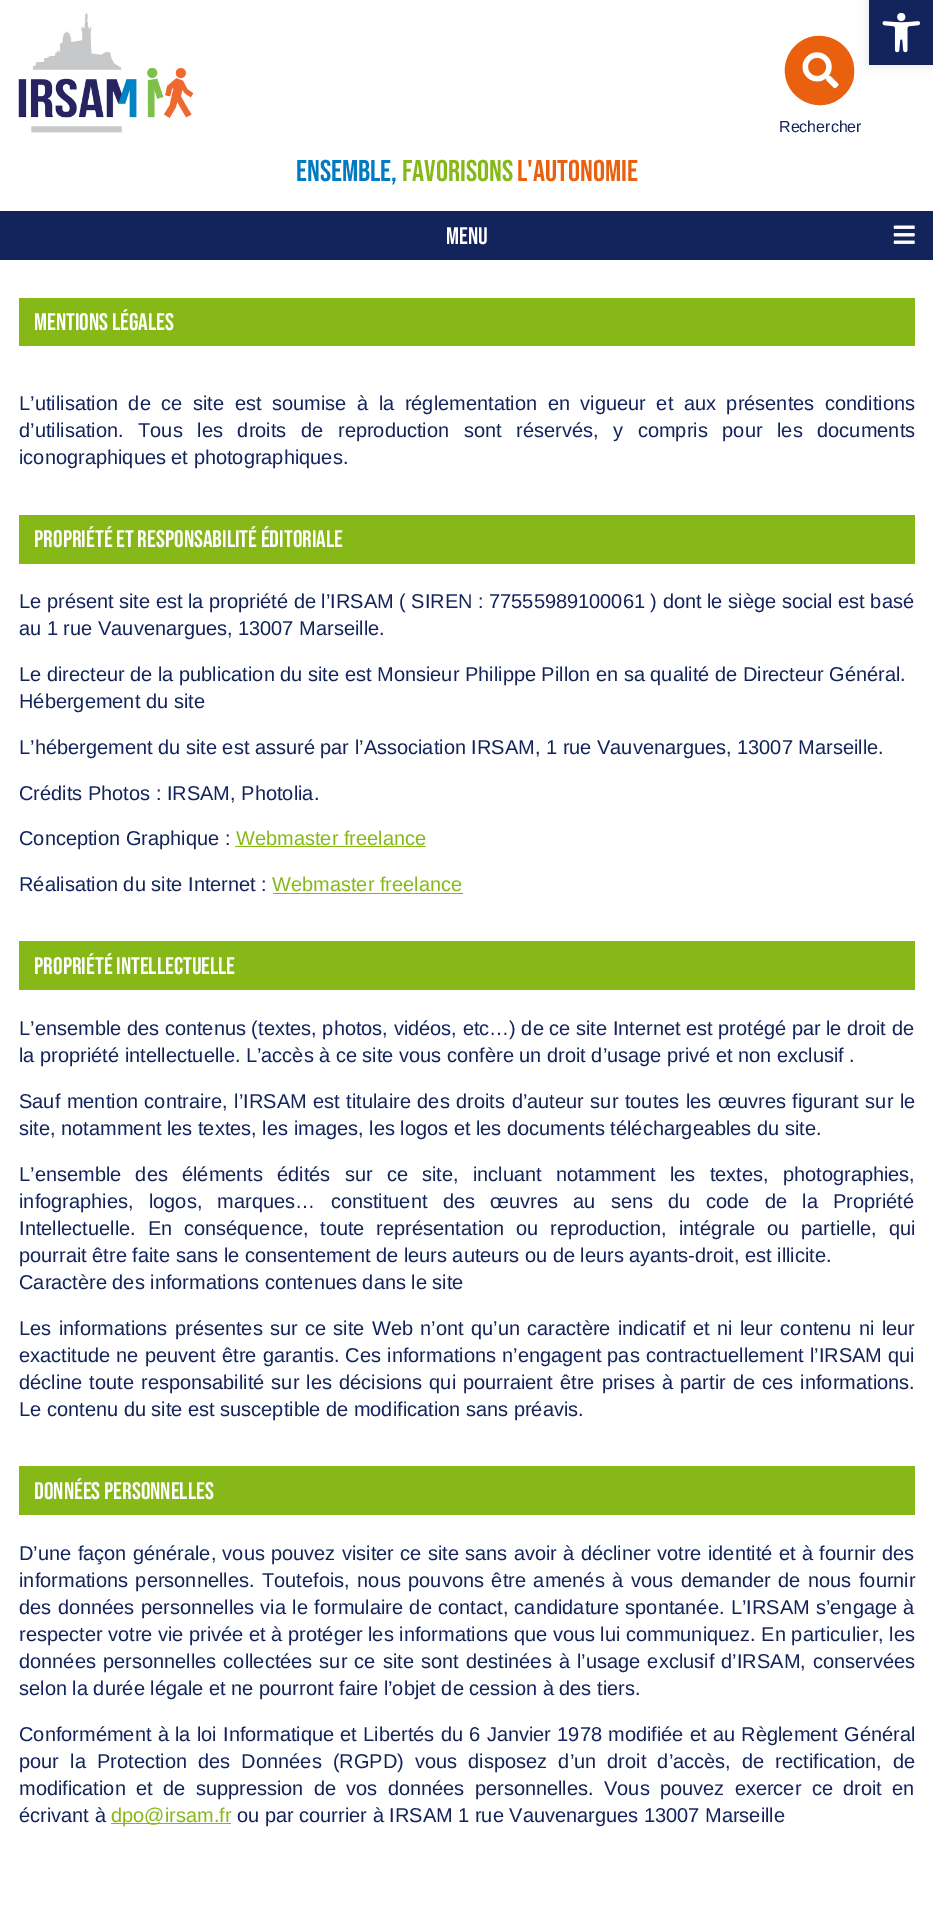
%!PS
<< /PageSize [933 1913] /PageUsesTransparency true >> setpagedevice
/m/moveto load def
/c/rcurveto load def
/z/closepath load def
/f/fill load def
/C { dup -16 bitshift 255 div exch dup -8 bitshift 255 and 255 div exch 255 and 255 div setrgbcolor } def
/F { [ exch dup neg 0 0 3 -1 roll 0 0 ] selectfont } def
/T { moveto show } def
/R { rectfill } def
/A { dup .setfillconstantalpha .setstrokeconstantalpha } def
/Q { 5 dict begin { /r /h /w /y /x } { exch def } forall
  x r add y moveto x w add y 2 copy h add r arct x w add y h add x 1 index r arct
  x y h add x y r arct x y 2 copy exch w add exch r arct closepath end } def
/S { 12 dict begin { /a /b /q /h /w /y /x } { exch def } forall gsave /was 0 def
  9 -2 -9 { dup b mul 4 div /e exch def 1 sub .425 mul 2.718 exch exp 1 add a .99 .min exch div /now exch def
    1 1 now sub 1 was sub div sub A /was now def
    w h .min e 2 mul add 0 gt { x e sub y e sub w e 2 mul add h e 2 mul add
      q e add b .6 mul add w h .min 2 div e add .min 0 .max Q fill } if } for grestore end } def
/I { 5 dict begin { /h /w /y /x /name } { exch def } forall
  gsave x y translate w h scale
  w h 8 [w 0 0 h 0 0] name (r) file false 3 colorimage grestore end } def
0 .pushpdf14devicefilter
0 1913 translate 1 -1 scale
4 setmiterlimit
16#FFFFFF C
0 0 933 1913 R
16#E9600F C
795 46 m 23 -23 62 -4 59 28 c 0 8 -4 15 -10 21 c -23 23 -62 4 -59 -28 c 1 -8 4 -15 10 -21 c z f
16#000000 C
869 0 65 65 0 6 .1 S
16#13235B C
869 0 64 65 R
(1.rgb) 882 13 38 40 I
(2.rgb) 18 12 176 121 I
(3.rgb) 802 52 37 37 I
/LiberationSans-Regular 16 F
(Rechercher) 779 132 T
/BebasNeue-Regular 30 F
16#007AC1 C
(ENSEMBLE,) 296 181 T
16#86B918 C
(FAVORISONS) 402 181 T
16#E9600F C
(L'AUTONOMIE) 517 181 T
16#13235B C
0 211 933 49 R
/BebasNeue-Regular 24 F
16#FFFFFF C
(MENU) 446 244 T
(4.rgb) 893 225 22 19 I
16#86B918 C
19 298 896 48 R
16#FFFFFF C
(MENTIONS LÉGALES) 34 330 T
/LiberationSans-Regular 20 F
16#13235B C
19 410 m 5 0 32 (L’utilisation de ce site est soumise à la réglementation en vigueur et aux présentes conditions) widthshow
19 437 m 9.1 0 32 (d’utilisation. Tous les droits de reproduction sont réservés, y compris pour les documents) widthshow
(iconographiques et photographiques.) 19 464 T
16#86B918 C
19 515 896 49 R
/BebasNeue-Regular 24 F
16#FFFFFF C
(PROPRIÉTÉ ET RESPONSABILITÉ ÉDITORIALE) 34 547 T
/LiberationSans-Regular 20 F
16#13235B C
(Le présent site est la propriété de l’IRSAM \( SIREN : 77555989100061 \) dont le siège social est basé) 19 608 T
(au 1 rue Vauvenargues, 13007 Marseille.) 19 635 T
(Le directeur de la publication du site est Monsieur Philippe Pillon en sa qualité de Directeur Général.) 19 681 T
(Hébergement du site) 19 708 T
(L’hébergement du site est assuré par l’Association IRSAM, 1 rue Vauvenargues, 13007 Marseille.) 19 754 T
(Crédits Photos : IRSAM, Photolia.) 19 800 T
(Conception Graphique :) 19 845 T
16#86B918 C
(Webmaster freelance) 236 845 T
235 846 191 1 R
16#13235B C
(Réalisation du site Internet :) 19 891 T
16#86B918 C
(Webmaster freelance) 272 891 T
273 893 190 1 R
19 941 896 49 R
/BebasNeue-Regular 24 F
16#FFFFFF C
(PROPRIÉTÉ INTELLECTUELLE) 34 974 T
/LiberationSans-Regular 20 F
16#13235B C
(L’ensemble des contenus \(textes, photos, vidéos, etc…\) de ce site Internet est protégé par le droit de) 19 1035 T
(la propriété intellectuelle. L’accès à ce site vous confère un droit d’usage privé et non exclusif .) 19 1062 T
19 1108 m 1 0 32 (Sauf mention contraire, l’IRSAM est titulaire des droits d’auteur sur toutes les œuvres figurant sur le) widthshow
(site, notamment les textes, les images, les logos et les documents téléchargeables du site.) 19 1135 T
19 1181 m 8.6 0 32 (L’ensemble des éléments édités sur ce site, incluant notamment les textes, photographies,) widthshow
19 1208 m 9.75 0 32 (infographies, logos, marques… constituent des œuvres au sens du code de la Propriété) widthshow
19 1235 m 6.25 0 32 (Intellectuelle. En conséquence, toute représentation ou reproduction, intégrale ou partielle, qui) widthshow
(pourrait être faite sans le consentement de leurs auteurs ou de leurs ayants-droit, est illicite.) 19 1262 T
(Caractère des informations contenues dans le site) 19 1289 T
19 1335 m 1.75 0 32 (Les informations présentes sur ce site Web n’ont qu’un caractère indicatif et ni leur contenu ni leur) widthshow
19 1362 m .6 0 32 (exactitude ne peuvent être garantis. Ces informations n’engagent pas contractuellement l’IRSAM qui) widthshow
19 1389 m 1.5 0 32 (décline toute responsabilité sur les décisions qui pourraient être prises à partir de ces informations.) widthshow
(Le contenu du site est susceptible de modification sans préavis.) 19 1416 T
16#86B918 C
19 1466 896 49 R
/BebasNeue-Regular 24 F
16#FFFFFF C
(DONNÉES PERSONNELLES) 34 1499 T
/LiberationSans-Regular 20 F
16#13235B C
19 1560 m .75 0 32 (D’une façon générale, vous pouvez visiter ce site sans avoir à décliner votre identité et à fournir des) widthshow
19 1587 m 2 0 32 (informations personnelles. Toutefois, nous pouvons être amenés à vous demander de nous fournir) widthshow
19 1614 m .8 0 32 (des données personnelles via le formulaire de contact, candidature spontanée. L’IRSAM s’engage à) widthshow
(respecter votre vie privée et à protéger les informations que vous lui communiquez. En particulier, les) 19 1641 T
19 1668 m 1.6 0 32 (données personnelles collectées sur ce site sont destinées à l’usage exclusif d’IRSAM, conservées) widthshow
(selon la durée légale et ne pourront faire l’objet de cession à des tiers.) 19 1695 T
19 1741 m .7 0 32 (Conformément à la loi Informatique et Libertés du 6 Janvier 1978 modifiée et au Règlement Général) widthshow
19 1768 m 5.6 0 32 (pour la Protection des Données \(RGPD\) vous disposez d’un droit d’accès, de rectification, de) widthshow
19 1795 m 4.75 0 32 (modification et de suppression de vos données personnelles. Vous pouvez exercer ce droit en) widthshow
(écrivant à) 19 1822 T
16#86B918 C
111 1823 120 1 R
(dpo@irsam.fr) 111 1822 T
16#13235B C
(ou par courrier à IRSAM 1 rue Vauvenargues 13007 Marseille) 237 1822 T
.poppdf14devicefilter showpage
